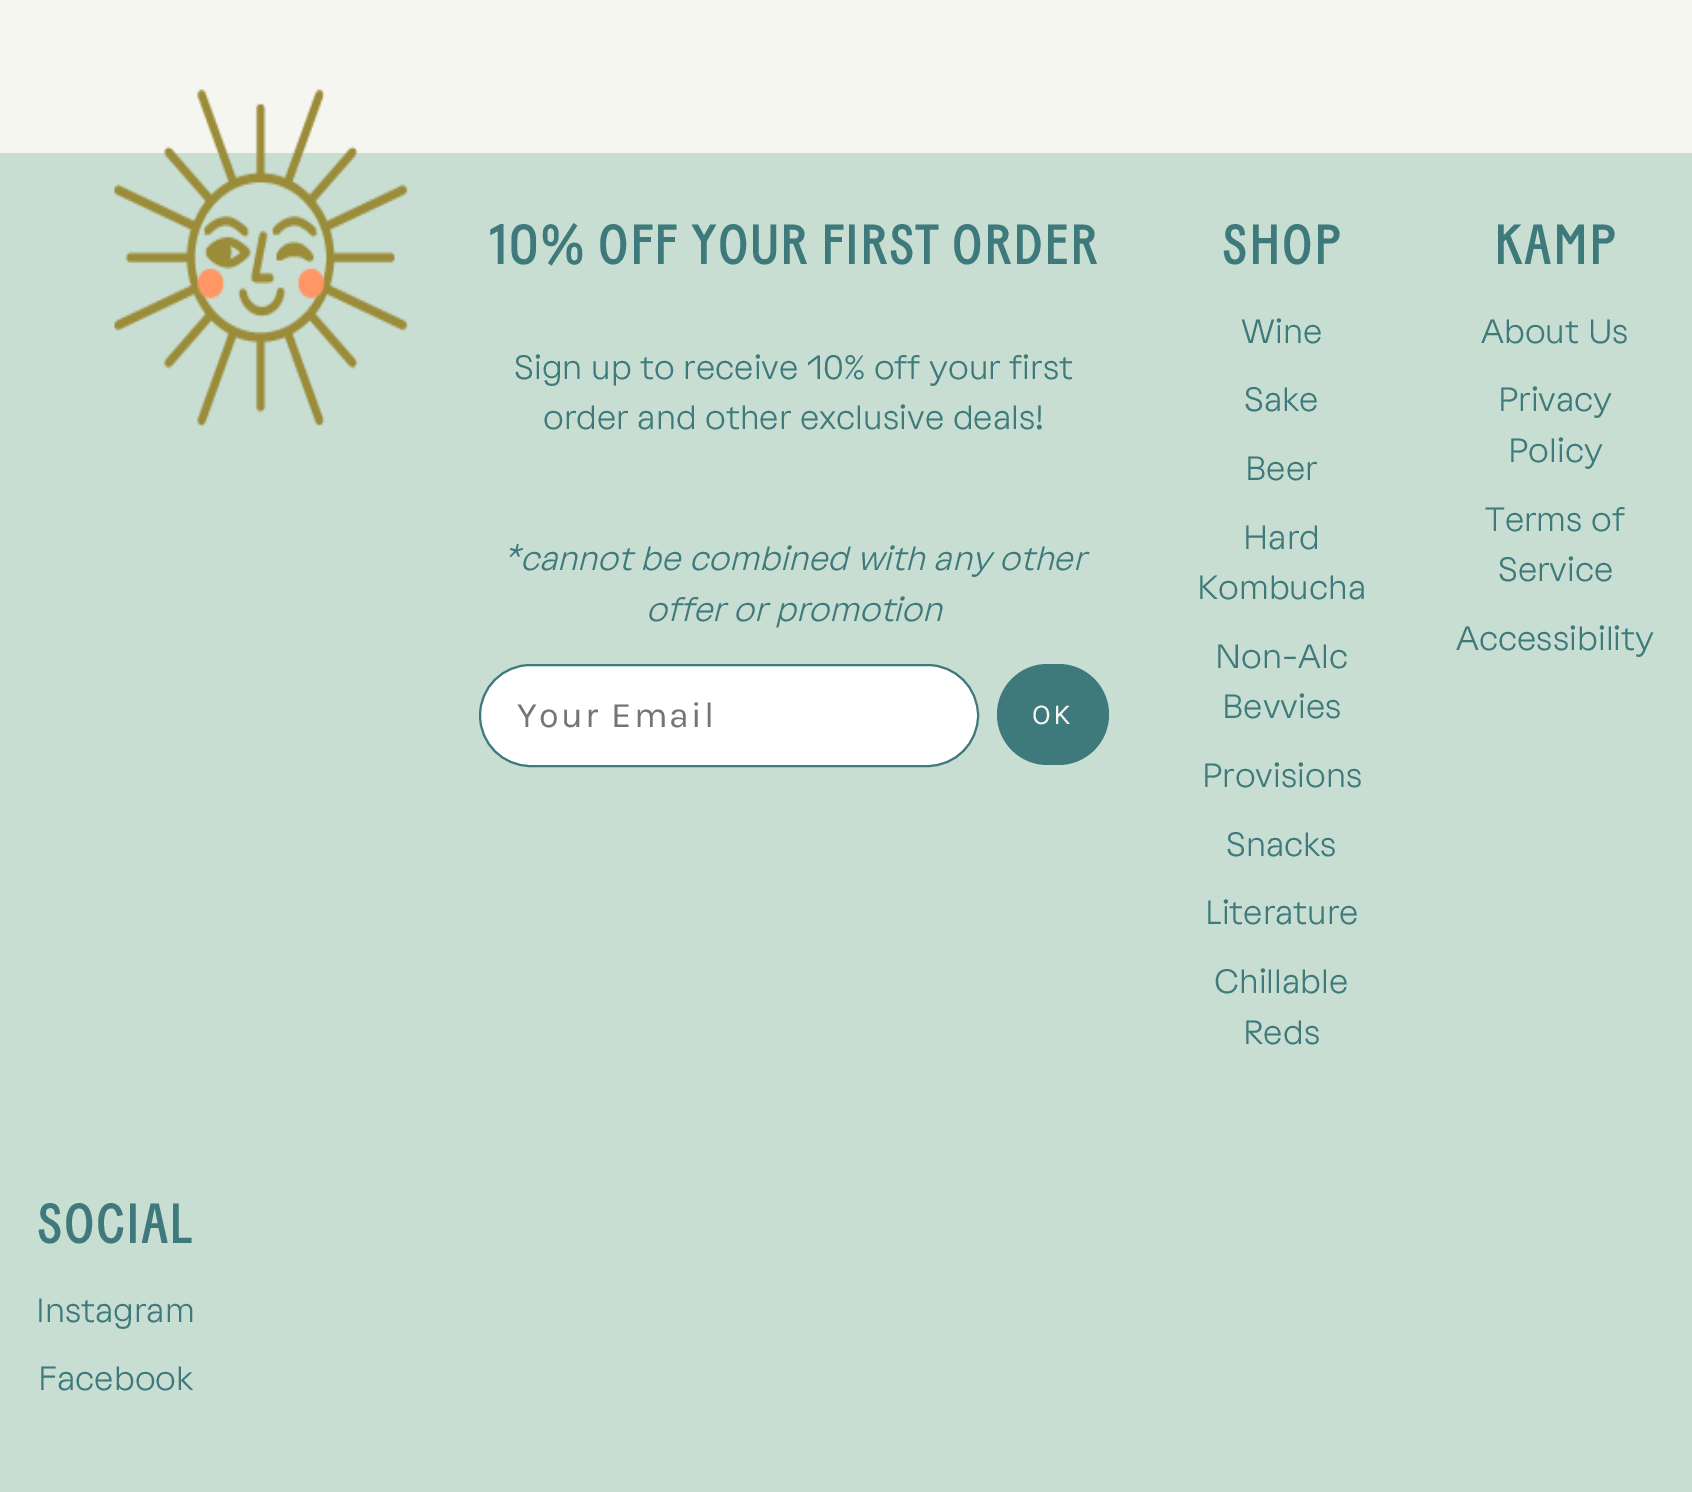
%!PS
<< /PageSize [1692 1492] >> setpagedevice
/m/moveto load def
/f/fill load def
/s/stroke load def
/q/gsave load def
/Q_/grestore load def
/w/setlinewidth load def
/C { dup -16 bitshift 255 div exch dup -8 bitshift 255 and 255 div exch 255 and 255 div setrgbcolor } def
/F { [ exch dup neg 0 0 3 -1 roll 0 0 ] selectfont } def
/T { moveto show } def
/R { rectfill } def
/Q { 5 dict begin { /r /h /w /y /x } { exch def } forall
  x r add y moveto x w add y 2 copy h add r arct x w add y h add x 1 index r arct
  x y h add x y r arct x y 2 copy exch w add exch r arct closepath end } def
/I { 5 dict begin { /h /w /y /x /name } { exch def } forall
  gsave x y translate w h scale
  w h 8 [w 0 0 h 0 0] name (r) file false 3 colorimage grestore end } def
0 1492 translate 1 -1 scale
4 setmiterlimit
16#F6F6F0 C
0 0 1692 1492 R
16#C9DED3 C
0 153 1692 1339 R
(1.rgb) 114 89 294 338 I
/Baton-Medium 56.25 F
16#3E7A7B C
489 264 m 1.4 0 (10% OFF YOUR FIRST ORDER) ashow
/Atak-Light 33.75 F
(Sign up to receive 10% off your first) 514 379 T
(order and other exclusive deals!) 543 429 T
/Atak-LightItalic 33.75 F
(*cannot be combined with any other) 503 570 T
(offer or promotion) 646 621 T
16#FFFFFF C
480 665 498 101 50.5 Q q f Q_
16#3E7A7B C
2 w
s
/Karla-Regular 36 F
16#757575 C
517 727 m 2.25 0 (Your Email) ashow
16#3E7A7B C
997 664 112 101 50.5 Q f
/Karla-Regular 29 F
16#F6F6F0 C
1032 724 m 2.25 0 (OK) ashow
/Baton-Medium 56.25 F
16#3E7A7B C
1222 264 m 1.4 0 (SHOP) ashow
/Atak-Light 33.75 F
(Wine) 1241 343 T
(Sake) 1244 411 T
(Beer) 1245 480 T
(Hard) 1243 549 T
(Kombucha) 1197 599 T
(Non-Alc) 1215 668 T
(Bevvies) 1222 718 T
(Provisions) 1202 787 T
(Snacks) 1226 856 T
(Literature) 1205 924 T
(Chillable) 1214 993 T
(Reds) 1243 1044 T
/Baton-Medium 56.25 F
1494 264 m 1.4 0 (KAMP) ashow
/Atak-Light 33.75 F
(About Us) 1481 343 T
(Privacy) 1498 411 T
(Policy) 1508 462 T
(Terms of) 1485 531 T
(Service) 1498 581 T
(Accessibility) 1456 650 T
/Baton-Medium 56.25 F
37 1243 m 1.4 0 (SOCIAL) ashow
/Atak-Light 33.75 F
(Instagram) 36 1322 T
(Facebook) 38 1390 T
showpage
